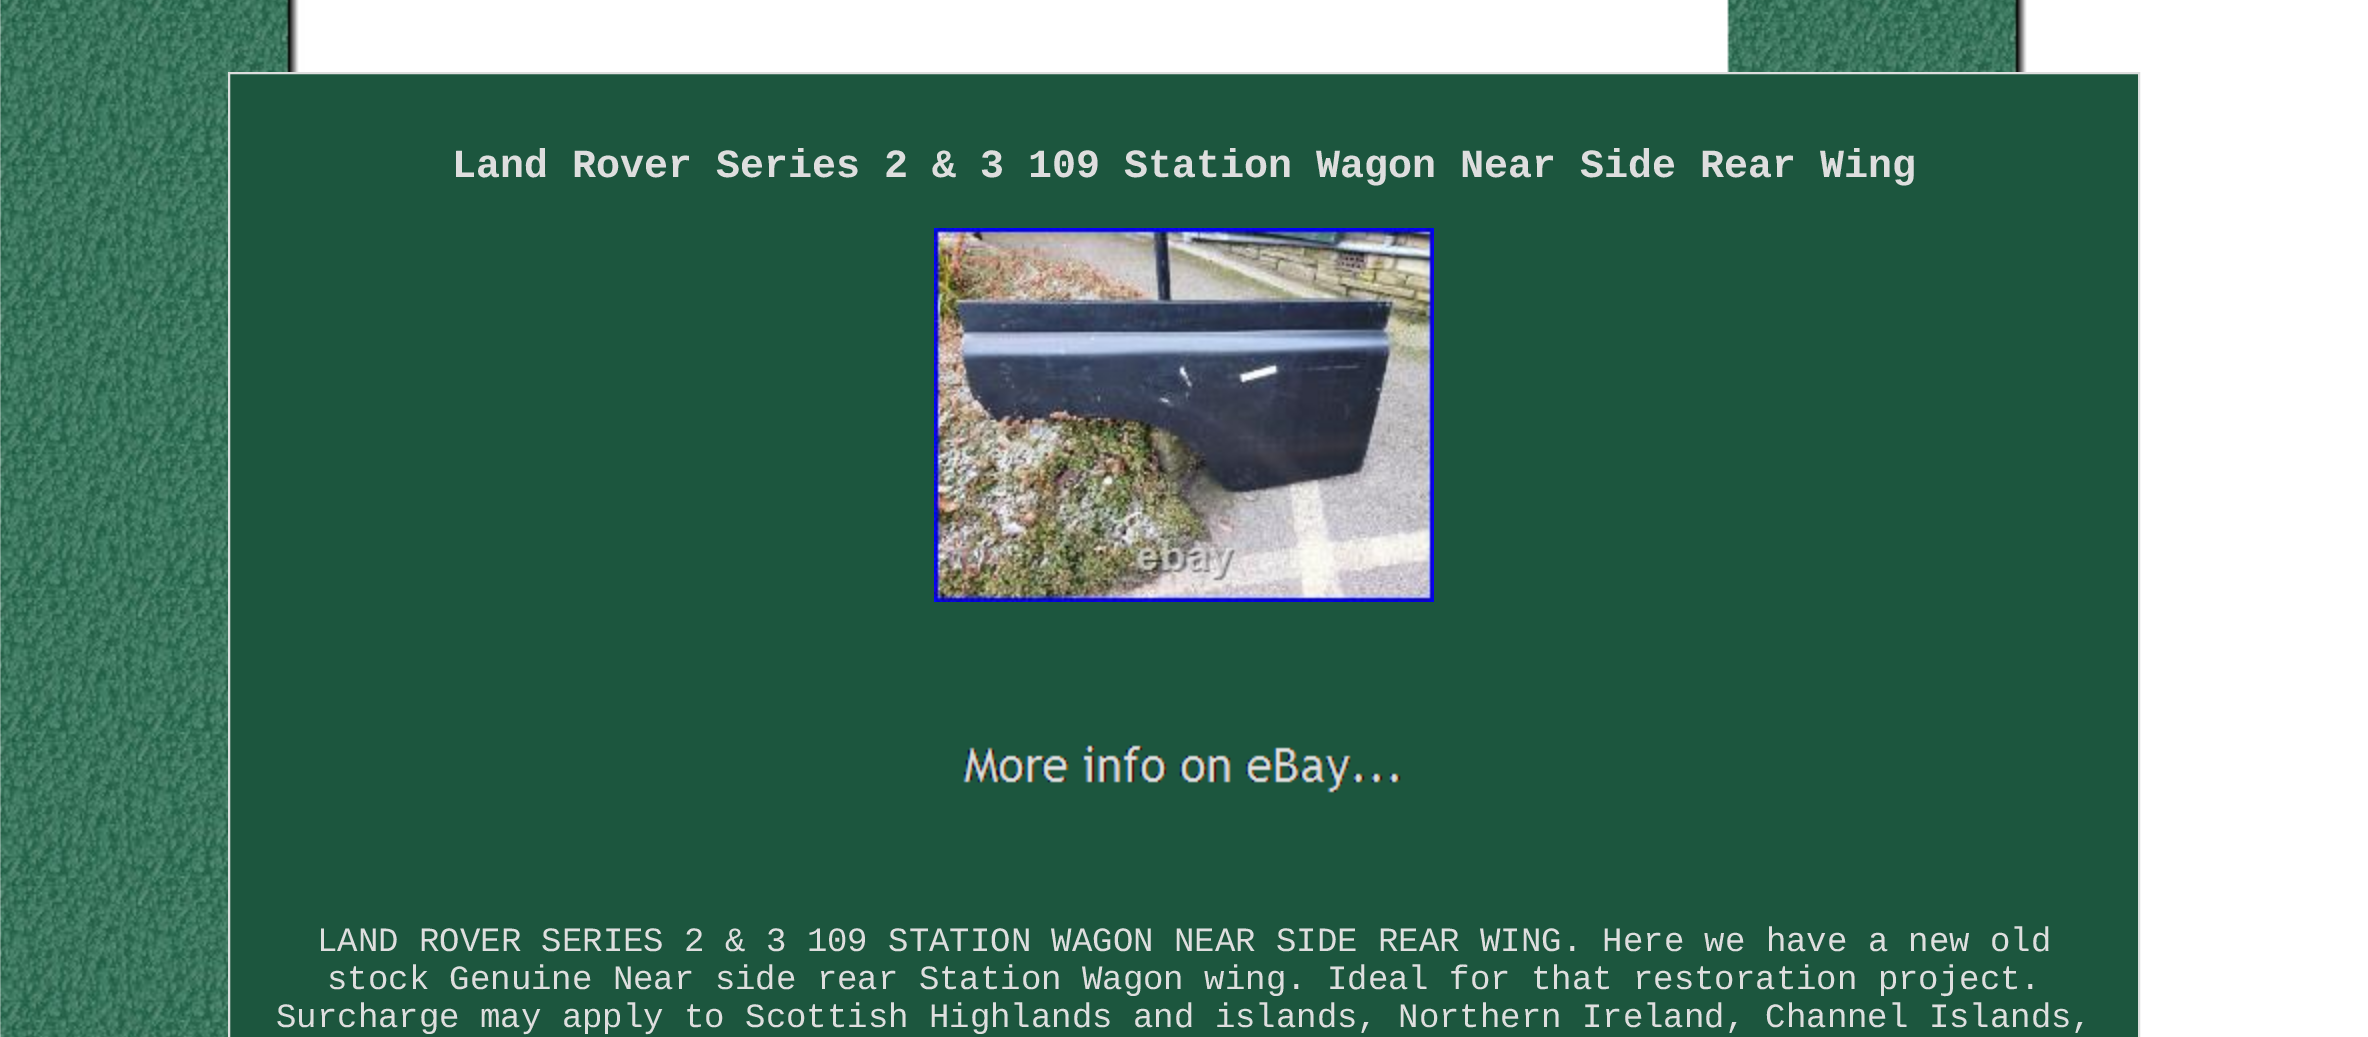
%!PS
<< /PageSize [2368 1037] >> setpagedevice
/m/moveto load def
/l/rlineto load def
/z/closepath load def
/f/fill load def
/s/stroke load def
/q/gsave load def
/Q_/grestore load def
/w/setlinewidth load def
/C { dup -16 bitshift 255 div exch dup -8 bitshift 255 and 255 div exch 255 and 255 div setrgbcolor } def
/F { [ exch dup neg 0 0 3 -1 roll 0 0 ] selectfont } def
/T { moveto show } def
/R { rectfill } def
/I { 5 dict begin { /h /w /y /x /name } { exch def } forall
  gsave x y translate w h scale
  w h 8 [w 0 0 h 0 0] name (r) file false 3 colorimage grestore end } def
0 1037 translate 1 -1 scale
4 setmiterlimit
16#FFFFFF C
0 0 2368 1037 R
(1.rgb) 0 0 2027 1037 I
16#1C563E C
229 73 m 1910 0 l 0 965 l -1910 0 l z q f Q_
16#DEDEDE C
2 w
s
/LiberationMono-Bold 40 F
(Land Rover Series 2 & 3 109 Station Wagon Near Side Rear Wing) 452 177 T
(2.rgb) 934 228 500 374 I
(3.rgb) 963 745 438 48 I
/LiberationMono-Regular 34 F
(LAND ROVER SERIES 2 & 3 109 STATION WAGON NEAR SIDE REAR WING. Here we have a new old) 317 951 T
(stock Genuine Near side rear Station Wagon wing. Ideal for that restoration project.) 327 989 T
(Surcharge may apply to Scottish Highlands and islands, Northern Ireland, Channel Islands,) 276 1027 T
showpage
